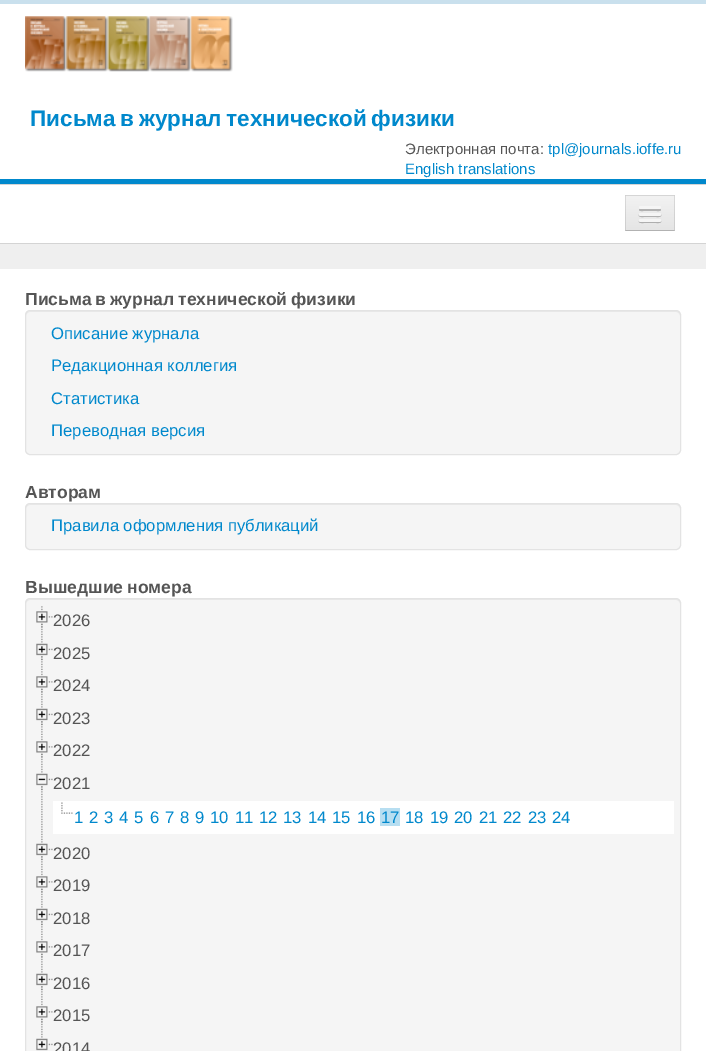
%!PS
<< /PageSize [706 1051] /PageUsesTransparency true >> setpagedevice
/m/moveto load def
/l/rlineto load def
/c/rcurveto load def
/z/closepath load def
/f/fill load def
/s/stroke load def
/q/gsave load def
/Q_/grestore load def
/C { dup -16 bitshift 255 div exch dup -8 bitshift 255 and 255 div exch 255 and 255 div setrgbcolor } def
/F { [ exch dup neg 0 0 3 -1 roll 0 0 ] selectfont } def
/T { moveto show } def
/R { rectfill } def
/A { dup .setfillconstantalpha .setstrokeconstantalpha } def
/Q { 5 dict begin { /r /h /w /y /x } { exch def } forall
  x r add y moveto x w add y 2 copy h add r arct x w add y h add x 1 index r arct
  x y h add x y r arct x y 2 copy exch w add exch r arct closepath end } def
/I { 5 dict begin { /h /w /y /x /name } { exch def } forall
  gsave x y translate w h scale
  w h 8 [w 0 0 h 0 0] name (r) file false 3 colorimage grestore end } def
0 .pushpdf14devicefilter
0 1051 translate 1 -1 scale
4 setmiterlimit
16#EFEFEF C
0 0 706 1051 R
16#FFFFFF C
0 4 706 175 R
16#C9E0ED C
0 0 706 4 R
16#0088CC C
0 179 706 5 R
(1.rgb) 25 16 208 56 I
/LiberationSans-Bold 22.5 F
30 126 m -1.5 0 32 (Письма в журнал технической физики) widthshow
/LiberationSans-Regular 15 F
16#555555 C
(Электронная почта:) 405 154 T
16#0088CC C
(tpl@journals.ioffe.ru) 548 154 T
(English translations) 405 174 T
16#FFFFFF C
0 185 706 58 R
16#D4D4D4 C
0 184 706 1 R
0 243 706 1 R
16#EDEDED C
625 195 50 36 R
q 625 196 m 50 0 l 0 34 l -50 0 l z clip newpath
<< /ShadingType 2 /ColorSpace /DeviceRGB /Coords [650 196 650 230] /Extend [true true] /Function << /FunctionType 2 /Domain [0 1] /C0 [.949 .949 .949] /C1 [.898 .898 .898] /N 1 >> >> shfill Q_
16#D5D5D5 C
625 195 m 50 0 l -1 1 l -48 0 l z f
0.1 A
16#000000 C
675 195 m 0 36 l -1 -1 l 0 -34 l z f
0.25 A
675 231 m -50 0 l 1 -1 l 48 0 l z f
0.1 A
625 231 m 0 -36 l 1 1 l 0 34 l z f
1 A
16#B1B1B1 C
639.5 208.5 m -.5 1.5 l .5 1.5 3.5 1 4.5 1 c 13 0 l 1 0 4 .5 4.5 -1 c -.5 -1.5 l z f
16#F5F5F5 C
639 206 22 3 1.5 Q f
16#B0B0B0 C
639 214.5 m -1.5 3 4 2.5 4.5 2.5 c 13 0 l .5 0 6 .5 4.5 -2.5 c -1 .5 -21 .5 -22 0 c z f
16#F5F5F5 C
639 213 22 3 1.5 Q f
16#AEAEAE C
639 221 m -1 2.5 4 2 4.5 2 c 13 0 l .5 0 5.5 .5 4.5 -2 c -1 .5 -21 .5 -22 0 c z f
16#F5F5F5 C
639 219 22 3 1.5 Q f
16#FFFFFF C
0 269 706 782 R
/LiberationSans-Bold 17.5 F
16#555555 C
25 305 m -1 0 32 (Письма в журнал технической физики) widthshow
16#F5F5F5 C
25 310 656 145 5 Q f
16#E9E9E9 C
30 312 m 646 0 l 2 0 4 2 4 4 c 0 -3 -1 -5 -4 -5 c -646 0 l -3 1 l -1 1 l 0 3 l 0 -2 2 -4 4 -4 c z f
16#E3E3E3 C
25.5 310.5 655 144 4.5 Q s
/LiberationSans-Regular 16.7 F
16#0088CC C
(Описание журнала) 51 339 T
(Редакционная коллегия) 51 371 T
(Статистика) 51 404 T
(Переводная версия) 51 436 T
/LiberationSans-Bold 17.5 F
16#555555 C
(Авторам) 25 498 T
16#F5F5F5 C
25 503 656 47 5 Q f
16#E9E9E9 C
30 505 m 646 0 l 2 0 4 2 4 4 c 0 -3 -1 -5 -4 -5 c -646 0 l -3 1 l -1 1 l 0 3 l 0 -2 2 -4 4 -4 c z f
16#E3E3E3 C
25.5 503.5 655 46 4.5 Q s
/LiberationSans-Regular 16.7 F
16#0088CC C
(Правила оформления публикаций) 51 531 T
/LiberationSans-Bold 17.5 F
16#555555 C
25 593 m -1 0 32 (Вышедшие номера) widthshow
16#F5F5F5 C
25 598 656 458 5 Q f
16#E9E9E9 C
30 600 m 646 0 l 2 0 4 2 4 4 c 0 -3 -1 -5 -4 -5 c -646 0 l -3 1 l -1 1 l 0 3 l 0 -2 2 -4 4 -4 c z f
16#E3E3E3 C
25.5 598.5 655 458 4.5 Q s
(2.rgb) 41 606 2 32 I
(3.rgb) 36 611 17 17 I
/LiberationSans-Regular 16.7 F
16#555555 C
(2026) 53 626 T
(4.rgb) 41 638 2 32 I
(5.rgb) 36 643 17 18 I
(2025) 53 659 T
(2.rgb) 41 671 2 32 I
(3.rgb) 36 676 17 17 I
(2024) 53 691 T
(4.rgb) 41 703 2 32 I
(5.rgb) 36 708 17 18 I
(2023) 53 724 T
(2.rgb) 41 736 2 32 I
(3.rgb) 36 741 17 17 I
(2022) 53 756 T
(6.rgb) 41 768 2 70 I
(7.rgb) 36 773 17 18 I
(2021) 53 789 T
16#FFFFFF C
53 801 621 33 R
(8.rgb) 61 802 12 12 I
16#0088CC C
(1) 74 823 T
(2) 89 823 T
(3) 104 823 T
(4) 119 823 T
(5) 134 823 T
(6) 150 823 T
(7) 165 823 T
(8) 180 823 T
(9) 195 823 T
(10) 210 823 T
(11) 235 823 T
(12) 259 823 T
(13) 283 823 T
(14) 308 823 T
(15) 332 823 T
(16) 357 823 T
16#B7DEF1 C
380 808 20 18 R
16#0088CC C
(17) 381 823 T
(18) 405 823 T
(19) 430 823 T
(20) 454 823 T
(21) 479 823 T
(22) 503 823 T
(23) 528 823 T
(24) 552 823 T
(4.rgb) 41 838 2 32 I
(5.rgb) 36 843 17 18 I
16#555555 C
(2020) 53 859 T
(2.rgb) 41 871 2 32 I
(3.rgb) 36 876 17 17 I
(2019) 53 891 T
(4.rgb) 41 903 2 32 I
(5.rgb) 36 908 17 18 I
(2018) 53 924 T
(2.rgb) 41 936 2 32 I
(3.rgb) 36 941 17 17 I
(2017) 53 956 T
(4.rgb) 41 968 2 32 I
(5.rgb) 36 973 17 18 I
(2016) 53 989 T
(2.rgb) 41 1001 2 32 I
(3.rgb) 36 1006 17 17 I
(2015) 53 1021 T
(9.rgb) 41 1033 2 5 I
(10.rgb) 36 1038 17 13 I
(2014) 53 1054 T
.poppdf14devicefilter showpage
